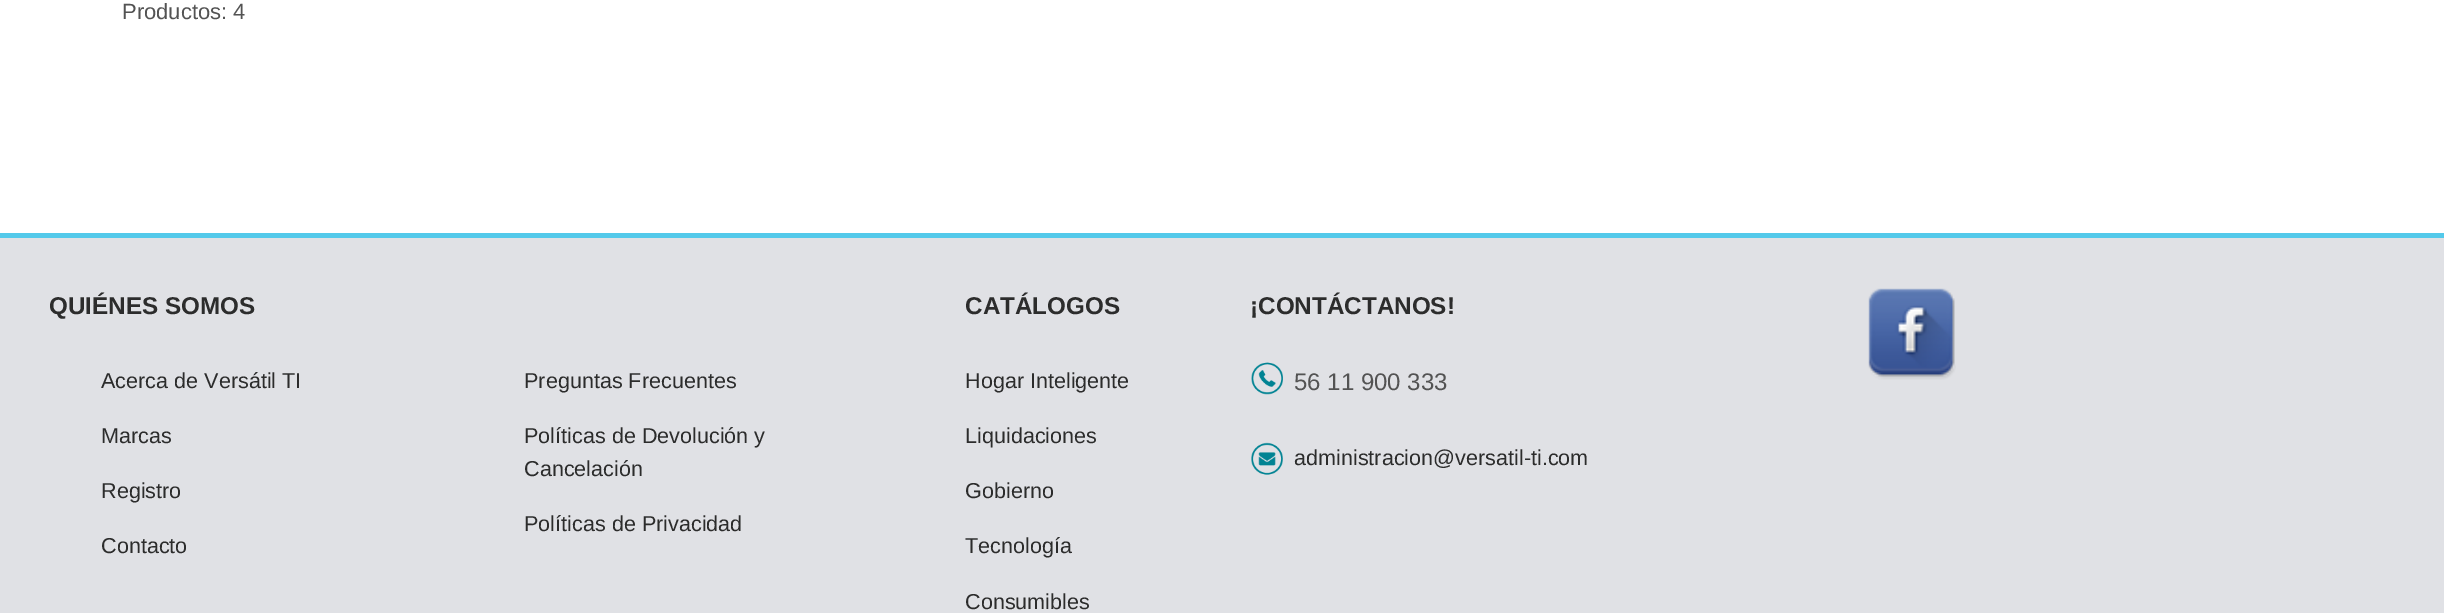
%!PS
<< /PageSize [2444 613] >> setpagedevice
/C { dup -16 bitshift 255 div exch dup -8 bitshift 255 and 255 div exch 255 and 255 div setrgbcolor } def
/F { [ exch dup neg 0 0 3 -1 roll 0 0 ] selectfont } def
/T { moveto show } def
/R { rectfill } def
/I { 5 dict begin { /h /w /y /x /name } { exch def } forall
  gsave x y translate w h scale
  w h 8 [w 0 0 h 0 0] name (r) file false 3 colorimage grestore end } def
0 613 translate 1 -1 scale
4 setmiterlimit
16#FFFFFF C
0 0 2444 613 R
/LiberationSans-Regular 22 F
16#535353 C
(Productos: 4) 122 19 T
16#E0E1E5 C
0 238 2444 375 R
16#53C9EA C
0 233 2444 5 R
/LiberationSans-Bold 24.25 F
16#2C2C2C C
(QUIÉNES SOMOS) 49 314 T
/LiberationSans-Regular 21.6 F
(Acerca de Versátil TI) 101 388 T
(Marcas) 101 443 T
(Registro) 101 498 T
(Contacto) 101 553 T
(Preguntas Frecuentes) 524 388 T
(Políticas de Devolución y) 524 443 T
(Cancelación) 524 476 T
(Políticas de Privacidad) 524 531 T
/LiberationSans-Bold 24.25 F
(CATÁLOGOS) 965 314 T
/LiberationSans-Regular 21.6 F
(Hogar Inteligente) 965 388 T
(Liquidaciones) 965 443 T
(Gobierno) 965 498 T
(Tecnología) 965 553 T
(Consumibles) 965 609 T
/LiberationSans-Bold 24.25 F
(¡CONTÁCTANOS!) 1250 314 T
(1.rgb) 1251 362 32 33 I
/LiberationSans-Regular 24 F
16#535353 C
(56 11 900 333) 1294 390 T
(2.rgb) 1251 442 32 33 I
/LiberationSans-Regular 21.6 F
16#2C2C2C C
(administracion@versatil-ti.com) 1294 465 T
(3.rgb) 1868 288 88 92 I
showpage
